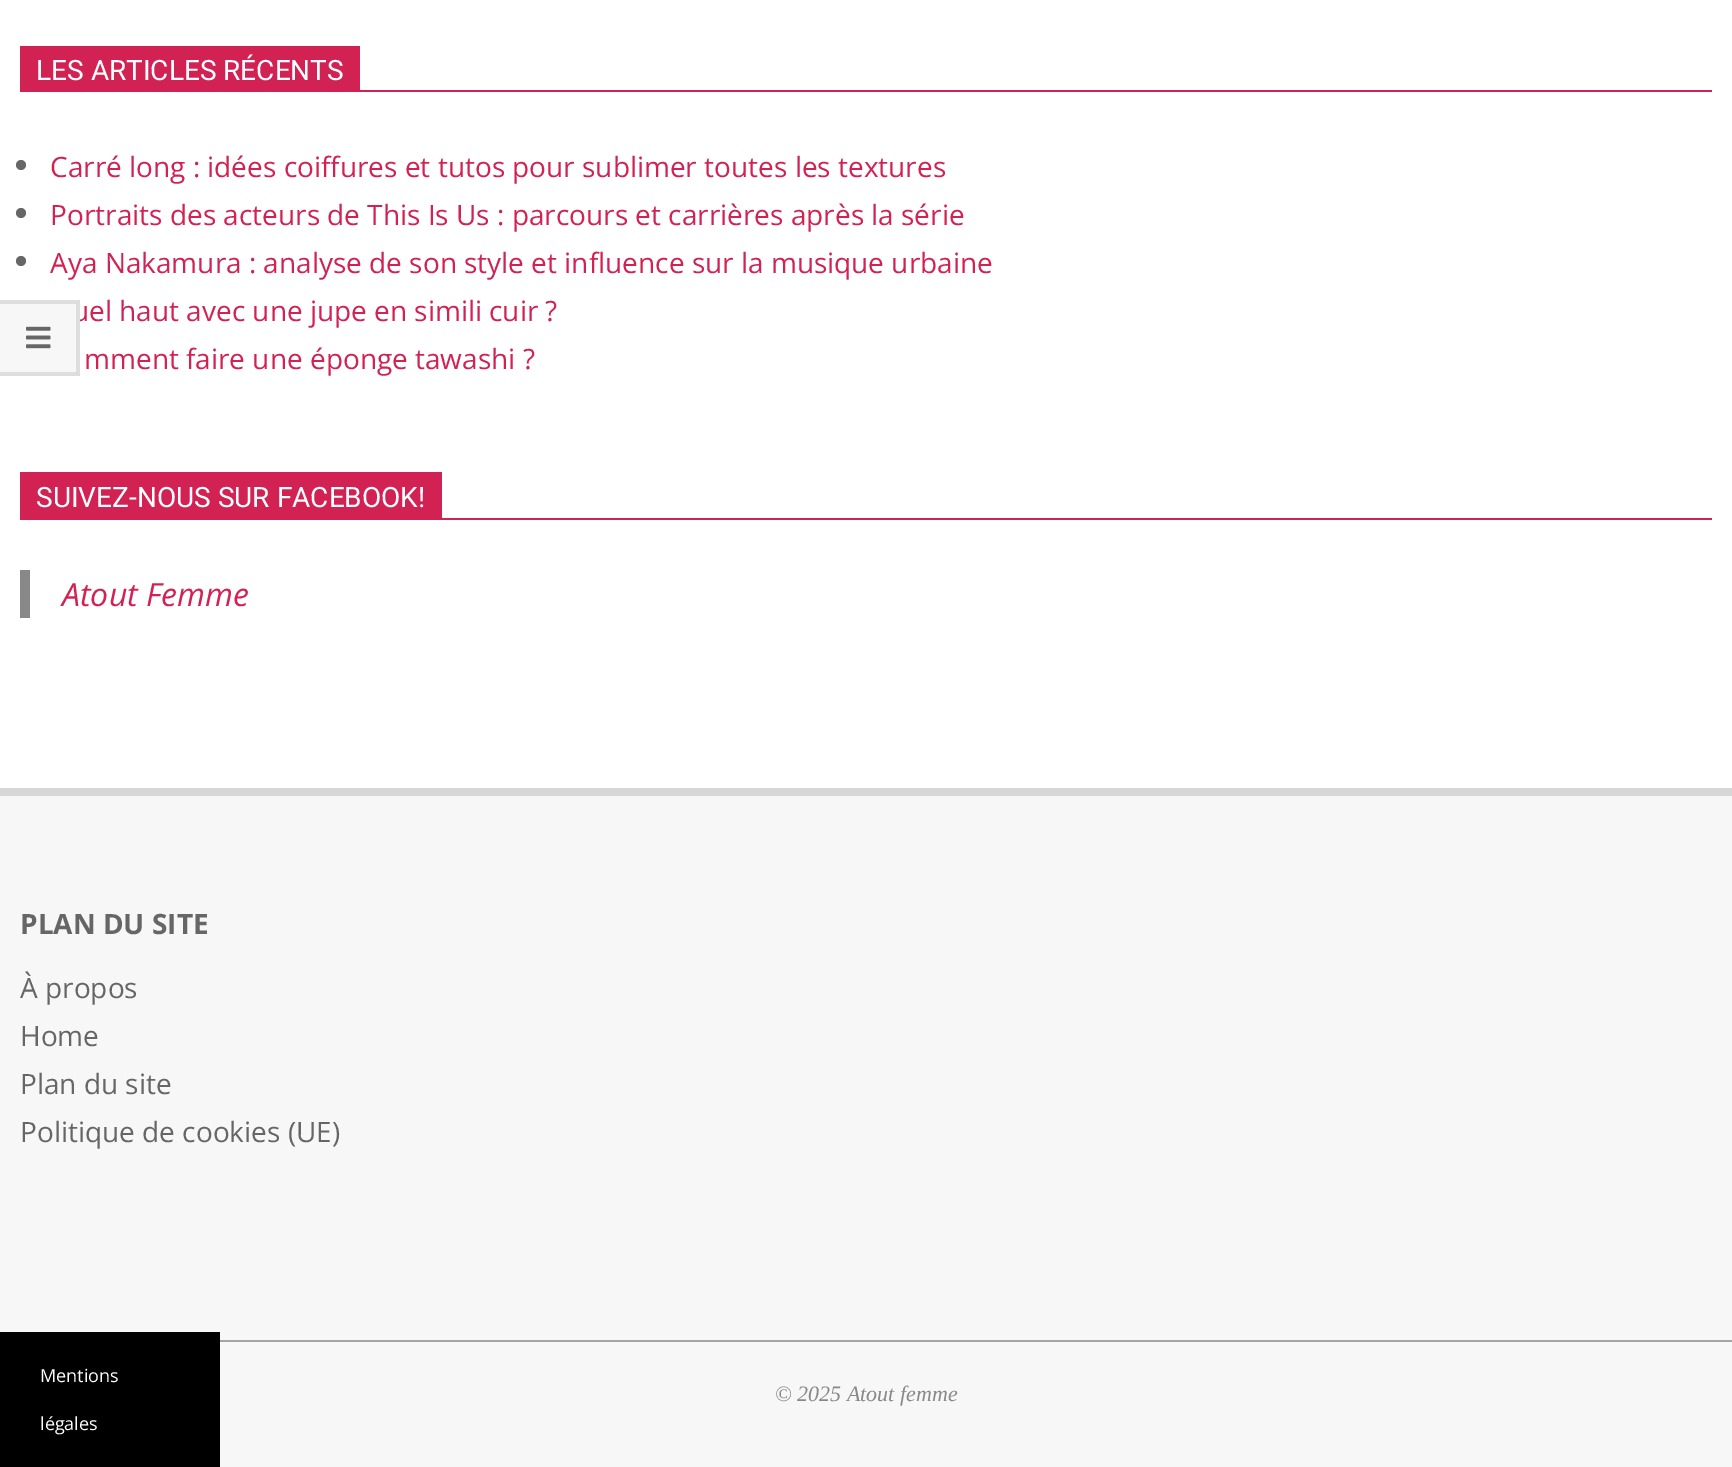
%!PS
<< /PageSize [1732 1467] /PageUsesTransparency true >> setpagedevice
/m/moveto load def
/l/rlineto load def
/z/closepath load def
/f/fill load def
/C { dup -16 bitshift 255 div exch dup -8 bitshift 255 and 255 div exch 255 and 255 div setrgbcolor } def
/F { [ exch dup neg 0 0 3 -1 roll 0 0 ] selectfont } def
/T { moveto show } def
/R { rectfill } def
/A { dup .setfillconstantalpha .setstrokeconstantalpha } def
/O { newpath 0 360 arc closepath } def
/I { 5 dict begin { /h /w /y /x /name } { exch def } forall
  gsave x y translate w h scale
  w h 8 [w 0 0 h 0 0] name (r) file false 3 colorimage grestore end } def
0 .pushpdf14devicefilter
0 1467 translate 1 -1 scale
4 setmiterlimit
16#F7F7F7 C
0 0 1732 1467 R
16#FFFFFF C
0 0 1732 788 R
16#D22254 C
20 46 340 44 R
/Roboto-Regular 28 F
16#FFFFFF C
(LES ARTICLES RÉCENTS) 36 80 T
16#D22254 C
20 90 1692 2 R
16#666666 C
21 165 5 O f
/OpenSans-Regular 28 F
16#D22254 C
(Carré long : idées coiffures et tutos pour sublimer toutes les textures) 50 177 T
16#666666 C
21 213 5 O f
16#D22254 C
(Portraits des acteurs de This Is Us : parcours et carrières après la série) 50 225 T
16#666666 C
21 261 5 O f
16#D22254 C
(Aya Nakamura : analyse de son style et influence sur la musique urbaine) 50 273 T
(uel haut avec une jupe en simili cuir ?) 72 321 T
(mment faire une éponge tawashi ?) 84 369 T
20 472 422 46 R
/Roboto-Regular 28 F
16#FFFFFF C
(SUIVEZ-NOUS SUR FACEBOOK!) 36 507 T
16#D22254 C
20 518 1692 2 R
16#888888 C
20 570 10 48 R
/OpenSans-Italic 32 F
16#D22254 C
(Atout Femme) 62 606 T
16#F7F7F7 C
0 300 80 76 R
16#DEDEDE C
0 300 m 80 0 l -4 4 l -76 0 l z f
0.1 A
16#000000 C
80 300 m 0 76 l -4 -4 l 0 -68 l z f
80 376 m -80 0 l 0 -4 l 76 0 l z f
1 A
(1.rgb) 26 326 25 23 I
16#D7D7D7 C
0 788 1732 8 R
/OpenSans-Bold 28 F
16#666666 C
(PLAN DU SITE) 20 934 T
/OpenSans-Regular 28 F
(À propos) 20 998 T
(Home) 20 1046 T
(Plan du site) 20 1094 T
(Politique de cookies \(UE\)) 20 1142 T
16#A5A5A5 C
220 1340 1512 2 R
/LiberationSerif-Italic 22 F
16#888888 C
(© 2025 Atout femme) 775 1401 T
16#000000 C
0 1332 220 135 R
/OpenSans-Regular 18 F
16#FFFFFF C
(Mentions) 40 1382 T
(légales) 40 1430 T
.poppdf14devicefilter showpage
